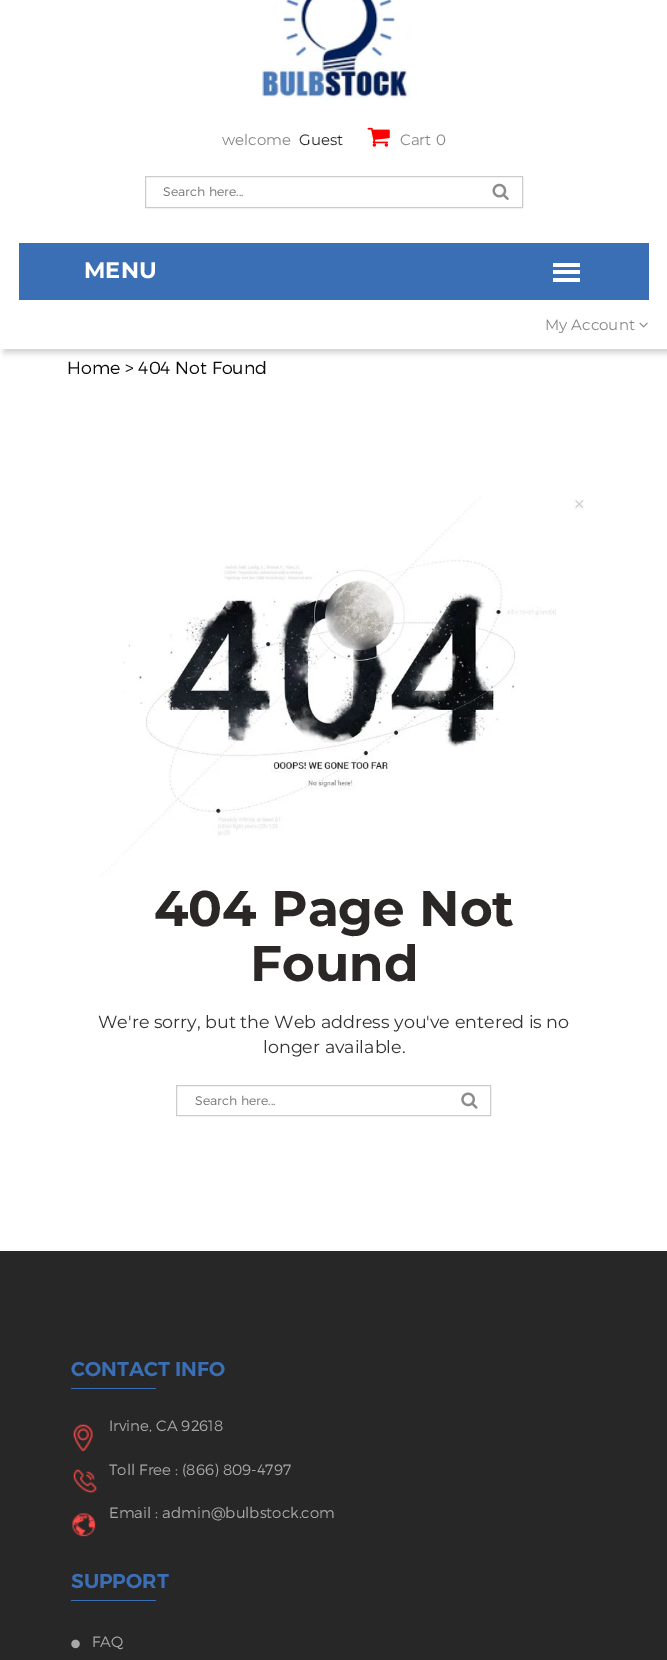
%!PS
<< /PageSize [667 1660] /PageUsesTransparency true >> setpagedevice
/m/moveto load def
/l/rlineto load def
/z/closepath load def
/q/gsave load def
/Q_/grestore load def
/C { dup -16 bitshift 255 div exch dup -8 bitshift 255 and 255 div exch 255 and 255 div setrgbcolor } def
/F { [ exch dup neg 0 0 3 -1 roll 0 0 ] selectfont } def
/T { moveto show } def
/R { rectfill } def
/A { dup .setfillconstantalpha .setstrokeconstantalpha } def
/Q { 5 dict begin { /r /h /w /y /x } { exch def } forall
  x r add y moveto x w add y 2 copy h add r arct x w add y h add x 1 index r arct
  x y h add x y r arct x y 2 copy exch w add exch r arct closepath end } def
/S { 12 dict begin { /a /b /q /h /w /y /x } { exch def } forall gsave /was 0 def
  9 -2 -9 { dup b mul 4 div /e exch def 1 sub .425 mul 2.718 exch exp 1 add a .99 .min exch div /now exch def
    1 1 now sub 1 was sub div sub A /was now def
    w h .min e 2 mul add 0 gt { x e sub y e sub w e 2 mul add h e 2 mul add
      q e add b .6 mul add w h .min 2 div e add .min 0 .max Q fill } if } for grestore end } def
/I { 5 dict begin { /h /w /y /x /name } { exch def } forall
  gsave x y translate w h scale
  w h 8 [w 0 0 h 0 0] name (r) file false 3 colorimage grestore end } def
0 .pushpdf14devicefilter
0 1660 translate 1 -1 scale
4 setmiterlimit
16#FFFFFF C
0 0 667 1660 R
q
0 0 m 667 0 l 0 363 l -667 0 l z 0 -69 m 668 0 l 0 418 l -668 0 l z eoclip newpath
16#D2D0D0 C
4 -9 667 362 0 3 1 S
Q_
(1.rgb) 261 0 150 100 I
/Montserrat-Regular 15 F
16#868484 C
(welcome) 222 145 T
16#2C2727 C
(Guest) 299 145 T
(2.rgb) 367 127 23 20 I
16#868484 C
(Cart 0) 400 145 T
16#CCCCCC C
145.5 176.5 377 31 rectstroke
/Montserrat-Light 12.5 F
16#757575 C
(Search here...) 163 196 T
(3.rgb) 492 183 17 17 I
16#3B6FB5 C
19 243 630 57 R
/Montserrat-Bold 22.5 F
16#FFFFFF C
(MENU) 84 278 T
553 263 27 4 R
553 270 27 4 R
553 278 27 4 R
/Montserrat-Regular 15 F
16#868484 C
(My Account) 545 330 T
(4.rgb) 639 322 9 6 I
/Montserrat-Light 17.5 F
16#0D0D0D C
(Home > 404 Not Found) 67 374 T
(5.rgb) 100 496 484 381 I
/Montserrat-Bold 50 F
16#2C2727 C
(404 Page Not) 154 926 T
(Found) 250 981 T
/Montserrat-Regular 17.5 F
16#333333 C
(We're sorry, but the Web address you've entered is no) 98 1028 T
(longer available.) 263 1053 T
16#CCCCCC C
176.5 1085.5 314 30 rectstroke
/Montserrat-Light 12.5 F
16#757575 C
(Search here...) 195 1105 T
(6.rgb) 461 1092 17 17 I
16#272727 C
0 1251 667 409 R
/Montserrat-SemiBold 20 F
16#3B6FB5 C
(CONTACT INFO) 71 1376 T
71 1388 85 1 R
(7.rgb) 73 1424 20 28 I
/Montserrat-Light 15 F
16#A9A6A6 C
(Irvine, CA 92618) 109 1431 T
(8.rgb) 73 1469 24 24 I
(Toll Free : \(866\) 809-4797) 109 1475 T
(9.rgb) 72 1513 24 24 I
(Email : admin@bulbstock.com) 109 1518 T
/Montserrat-SemiBold 20 F
16#3B6FB5 C
(SUPPORT) 71 1588 T
71 1600 85 1 R
(10.rgb) 71 1639 9 10 I
/Montserrat-Light 15 F
16#A9A6A6 C
(FAQ) 92 1647 T
.poppdf14devicefilter showpage
